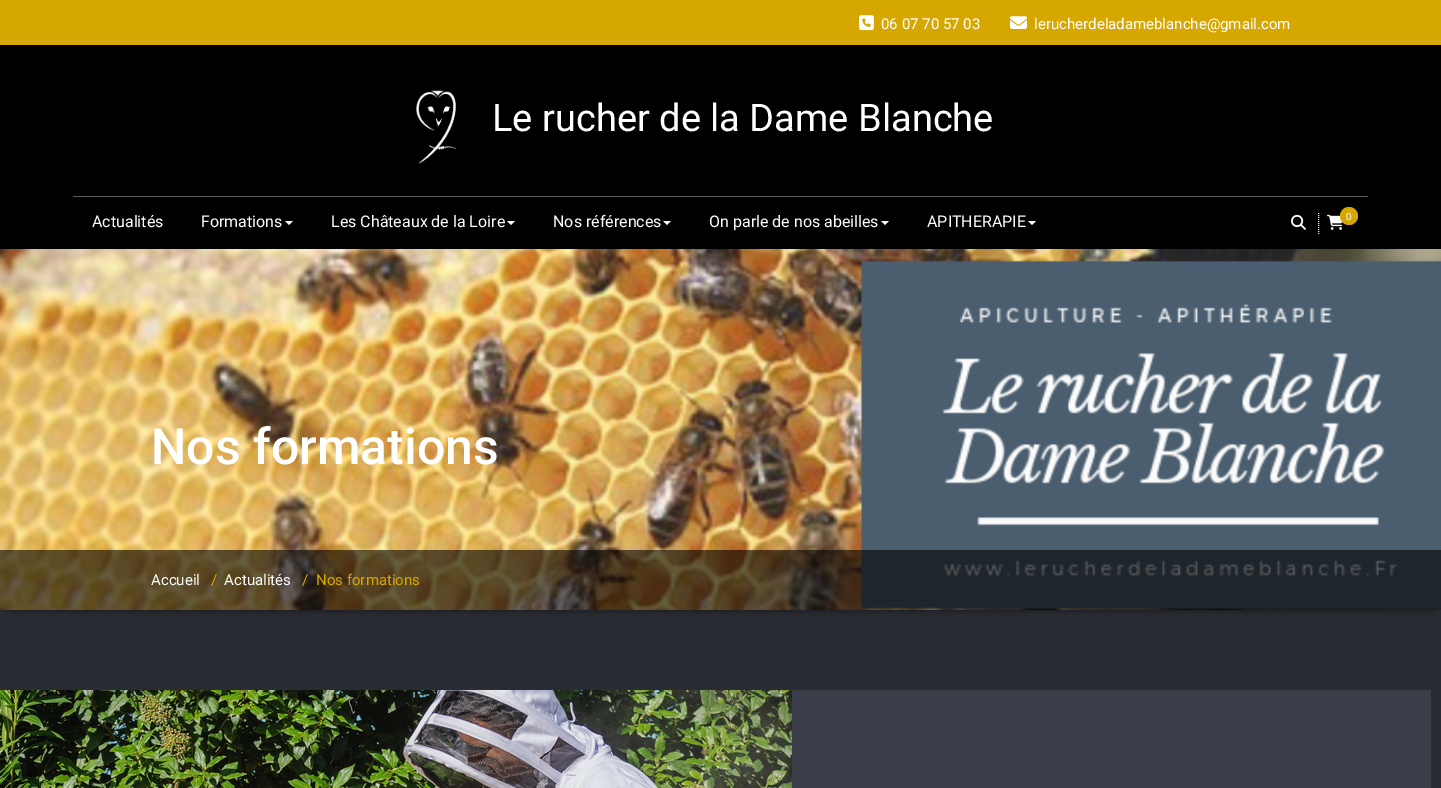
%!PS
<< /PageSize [1441 788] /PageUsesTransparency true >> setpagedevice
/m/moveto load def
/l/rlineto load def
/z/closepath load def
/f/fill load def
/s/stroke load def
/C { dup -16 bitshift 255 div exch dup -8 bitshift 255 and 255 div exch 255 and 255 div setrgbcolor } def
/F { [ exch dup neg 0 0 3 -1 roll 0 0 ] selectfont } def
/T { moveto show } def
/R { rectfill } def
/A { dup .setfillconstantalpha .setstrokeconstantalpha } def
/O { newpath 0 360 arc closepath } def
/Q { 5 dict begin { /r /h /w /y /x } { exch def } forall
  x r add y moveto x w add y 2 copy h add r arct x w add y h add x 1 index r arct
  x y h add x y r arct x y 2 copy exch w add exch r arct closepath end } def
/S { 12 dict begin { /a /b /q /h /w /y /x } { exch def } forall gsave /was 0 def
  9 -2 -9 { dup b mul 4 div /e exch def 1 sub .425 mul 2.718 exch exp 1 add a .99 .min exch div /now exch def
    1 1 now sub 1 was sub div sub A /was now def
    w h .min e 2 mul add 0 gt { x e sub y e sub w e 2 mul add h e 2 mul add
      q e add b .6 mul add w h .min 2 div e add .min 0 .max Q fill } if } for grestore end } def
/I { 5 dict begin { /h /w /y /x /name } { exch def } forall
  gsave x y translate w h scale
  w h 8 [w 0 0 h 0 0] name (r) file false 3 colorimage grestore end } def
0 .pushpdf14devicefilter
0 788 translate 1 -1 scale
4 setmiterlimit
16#2A2C33 C
0 0 1441 788 R
16#D6A700 C
0 0 1441 45 R
(1.rgb) 859 15 15 16 I
/Roboto-Regular 15 F
16#FFFFFF C
(06 07 70 57 03) 881 29 T
(2.rgb) 1010 16 17 13 I
(lerucherdeladameblanche@gmail.com) 1034 29 T
16#000000 C
0 45 1441 204 R
16#5F5656 C
73 196 1295 1 R
(3.rgb) 416 90 41 74 I
/Roboto-Regular 38 F
16#FFFFFF C
(Le rucher de la Dame Blanche) 492 131 T
/Roboto-Regular 16 F
(Actualités) 92 227 T
(Formations) 201 227 T
285 221 m 8 0 l -4 4 l z f
(Les Châteaux de la Loire) 331 227 T
507 221 m 8 0 l -4 4 l z f
(Nos références) 553 227 T
663 221 m 8 0 l -4 4 l z f
(On parle de nos abeilles) 709 227 T
881 221 m 8 0 l -4 4 l z f
(APITHERAPIE) 927 227 T
1028 221 m 8 0 l -4 4 l z f
(4.rgb) 1291 214 15 16 I
[1 1] 0 setdash
1318.5 213 m 0 21 l s
(5.rgb) 1327 214 16 16 I
16#D6A700 C
1349 216 9 O f
/LiberationSans-Regular 10 F
16#FFFFFF C
(0) 1346 220 T
16#000000 C
10 266 1421 341 0 5 1 S
(6.rgb) 0 249 1441 361 I
/Roboto-Medium 50 F
16#FFFFFF C
(Nos formations) 151 464 T
0.6 A
16#000000 C
0 550 1441 60 R
/Roboto-Regular 15 F
1 A
16#FFFFFF C
(Accueil) 151 585 T
16#D6A700 C
(/) 211 585 T
16#FFFFFF C
(Actualités) 224 585 T
16#D6A700 C
(/) 302 585 T
(Nos formations) 316 585 T
16#3C3F49 C
0 690 1431 98 R
(7.rgb) 0 690 792 98 I
.poppdf14devicefilter showpage
